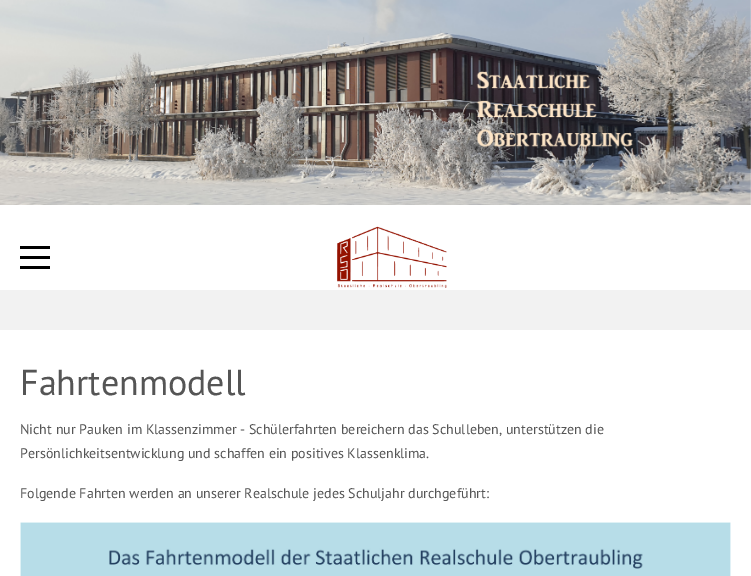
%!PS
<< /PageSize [751 576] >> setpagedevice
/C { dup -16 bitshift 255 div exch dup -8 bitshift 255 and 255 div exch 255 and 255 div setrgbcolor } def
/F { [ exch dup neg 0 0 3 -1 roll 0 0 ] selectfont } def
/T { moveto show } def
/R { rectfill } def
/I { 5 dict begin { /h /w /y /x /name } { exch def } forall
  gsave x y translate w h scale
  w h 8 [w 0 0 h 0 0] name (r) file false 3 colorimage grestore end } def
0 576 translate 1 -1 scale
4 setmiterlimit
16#FFFFFF C
0 0 751 576 R
(1.rgb) 0 0 751 205 I
16#000000 C
20 256 30 3 R
20 246 30 3 R
20 266 30 3 R
(2.rgb) 337 226 110 62 I
16#F2F2F2 C
0 290 751 40 R
/PTSans-Regular 36 F
16#555555 C
(Fahrtenmodell) 20 395 T
/PTSans-Regular 14 F
(Nicht nur Pauken im Klassenzimmer - Schülerfahrten bereichern das Schulleben, unterstützen die) 20 434 T
(Persönlichkeitsentwicklung und schaffen ein positives Klassenklima.) 20 458 T
(Folgende Fahrten werden an unserer Realschule jedes Schuljahr durchgeführt:) 20 498 T
(3.rgb) 20 522 711 54 I
showpage
